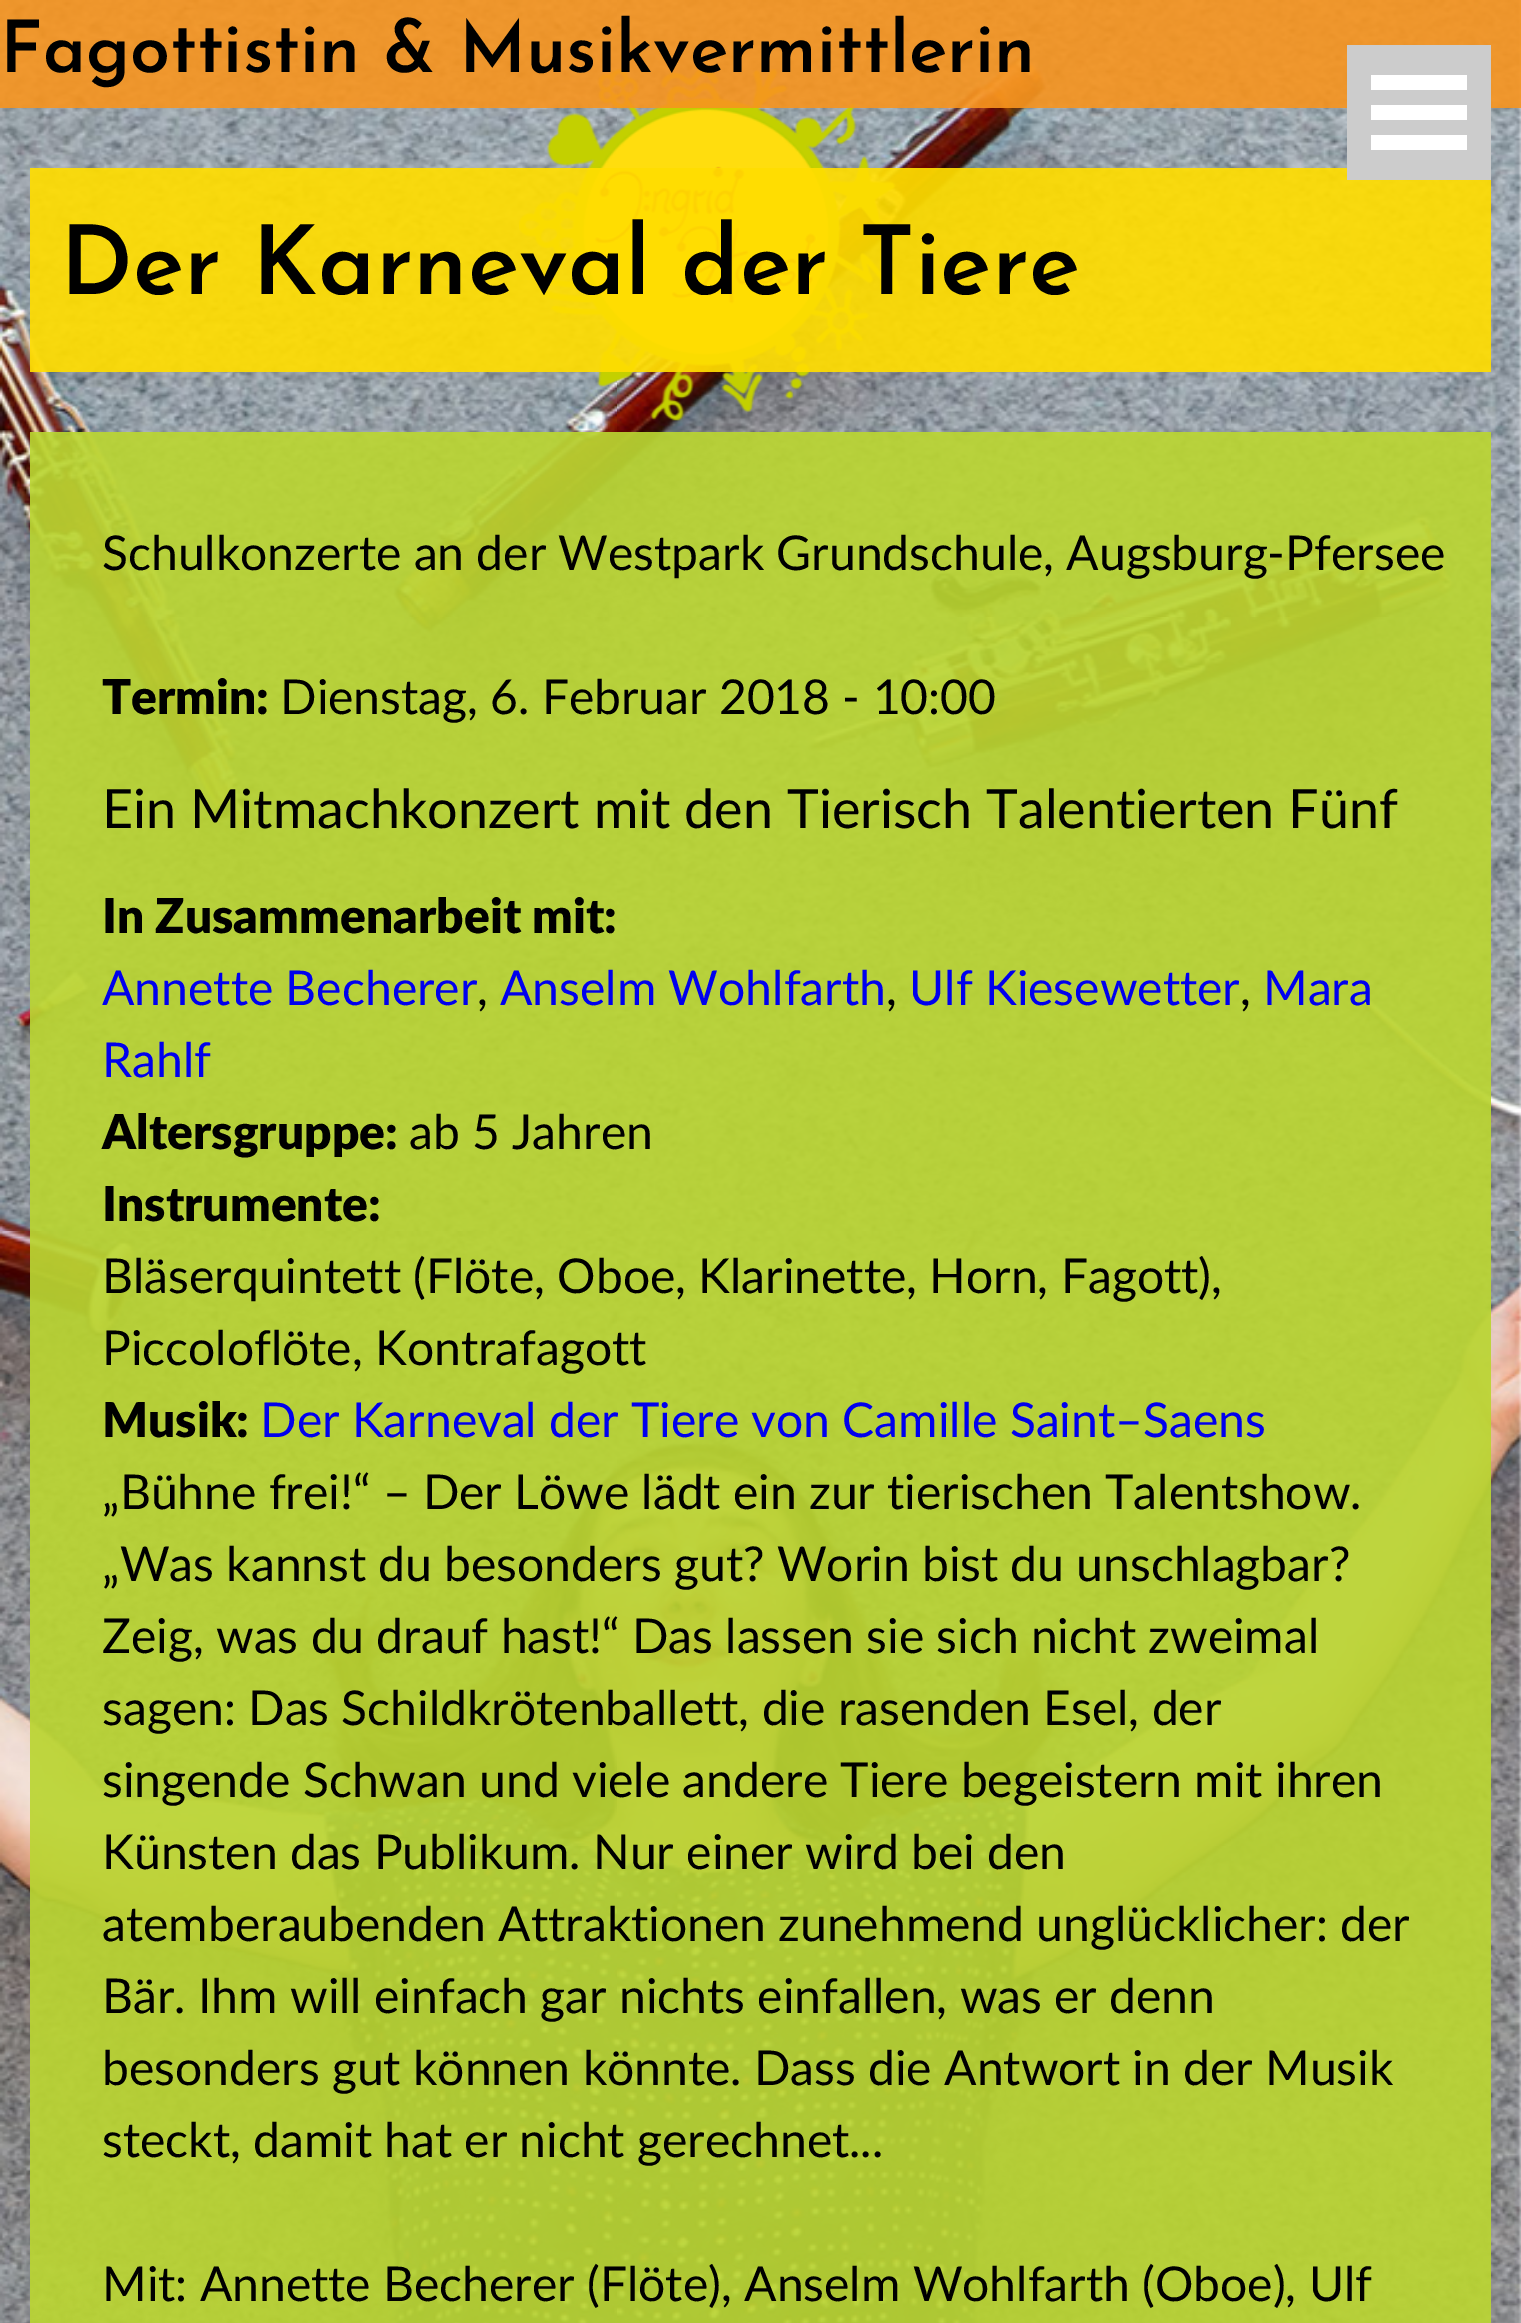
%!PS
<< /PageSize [1521 2323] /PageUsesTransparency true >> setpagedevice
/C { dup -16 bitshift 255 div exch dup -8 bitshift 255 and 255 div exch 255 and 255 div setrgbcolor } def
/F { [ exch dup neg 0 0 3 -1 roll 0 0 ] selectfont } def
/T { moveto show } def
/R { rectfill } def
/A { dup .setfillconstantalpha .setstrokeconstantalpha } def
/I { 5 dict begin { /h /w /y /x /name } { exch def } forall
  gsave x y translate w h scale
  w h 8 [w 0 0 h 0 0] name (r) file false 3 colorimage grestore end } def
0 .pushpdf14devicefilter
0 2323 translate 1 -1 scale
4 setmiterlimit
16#FFFFFF C
0 0 1521 2323 R
(1.rgb) 0 0 1521 2323 I
(2.rgb) 519 69 381 352 I
0.9 A
16#F7941E C
0 0 1521 108 R
/JosefinSans-SemiBold 72 F
1 A
16#000000 C
(Fagottistin & Musikvermittlerin) 0 72 T
0.92 A
16#FFDD00 C
30 168 1461 204 R
1 A
16#CCCCCC C
1347 45 144 135 R
16#FFFFFF C
1371 135 96 15 R
1371 105 96 15 R
1371 75 96 15 R
/JosefinSans-SemiBold 96 F
16#000000 C
(Der Karneval der Tiere) 60 294 T
0.92 A
16#BAD532 C
30 432 1461 1891 R
/Lato-Regular 48 F
1 A
16#000000 C
(Schulkonzerte an der Westpark Grundschule, Augsburg-Pfersee) 102 570 T
/Lato-Black 48 F
(Termin:) 102 714 T
/Lato-Regular 48 F
(Dienstag, 6. Februar 2018 - 10:00) 280 714 T
/Lato-Regular 54 F
(Ein Mitmachkonzert mit den Tierisch Talentierten Fünf) 102 828 T
/Lato-Black 48 F
(In Zusammenarbeit mit:) 102 933 T
/Lato-Regular 48 F
16#0000EE C
(Annette Becherer) 102 1005 T
16#000000 C
(,) 477 1005 T
16#0000EE C
(Anselm Wohlfarth) 500 1005 T
16#000000 C
(,) 886 1005 T
16#0000EE C
(Ulf Kiesewetter) 909 1005 T
16#000000 C
(,) 1240 1005 T
16#0000EE C
(Mara) 1263 1005 T
(Rahlf) 102 1077 T
/Lato-Black 48 F
16#000000 C
(Altersgruppe:) 102 1149 T
/Lato-Regular 48 F
(ab 5 Jahren) 409 1149 T
/Lato-Black 48 F
(Instrumente:) 102 1221 T
/Lato-Regular 48 F
(Bläserquintett \(Flöte, Oboe, Klarinette, Horn, Fagott\),) 102 1293 T
(Piccoloflöte, Kontrafagott) 102 1365 T
/Lato-Black 48 F
(Musik:) 102 1437 T
/Lato-Regular 48 F
16#0000EE C
(Der Karneval der Tiere von Camille Saint–Saens) 260 1437 T
16#000000 C
(„Bühne frei!“ – Der Löwe lädt ein zur tierischen Talentshow.) 102 1509 T
(„Was kannst du besonders gut? Worin bist du unschlagbar?) 102 1581 T
(Zeig, was du drauf hast!“ Das lassen sie sich nicht zweimal) 102 1653 T
(sagen: Das Schildkrötenballett, die rasenden Esel, der) 102 1725 T
(singende Schwan und viele andere Tiere begeistern mit ihren) 102 1797 T
(Künsten das Publikum. Nur einer wird bei den) 102 1869 T
(atemberaubenden Attraktionen zunehmend unglücklicher: der) 102 1941 T
(Bär. Ihm will einfach gar nichts einfallen, was er denn) 102 2013 T
(besonders gut können könnte. Dass die Antwort in der Musik) 102 2085 T
(steckt, damit hat er nicht gerechnet...) 102 2157 T
(Mit: Annette Becherer \(Flöte\), Anselm Wohlfarth \(Oboe\), Ulf) 102 2301 T
.poppdf14devicefilter showpage
